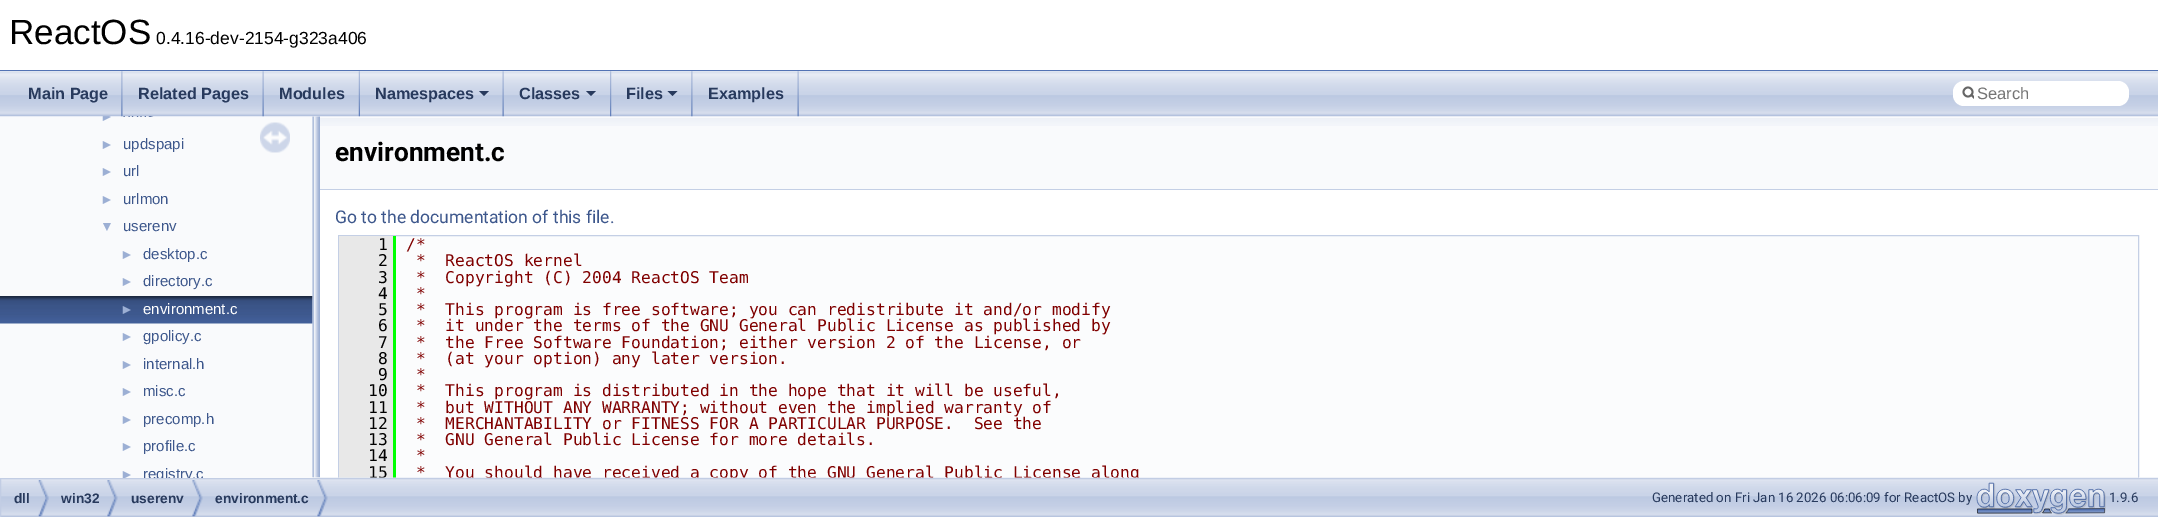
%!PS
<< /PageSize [2158 517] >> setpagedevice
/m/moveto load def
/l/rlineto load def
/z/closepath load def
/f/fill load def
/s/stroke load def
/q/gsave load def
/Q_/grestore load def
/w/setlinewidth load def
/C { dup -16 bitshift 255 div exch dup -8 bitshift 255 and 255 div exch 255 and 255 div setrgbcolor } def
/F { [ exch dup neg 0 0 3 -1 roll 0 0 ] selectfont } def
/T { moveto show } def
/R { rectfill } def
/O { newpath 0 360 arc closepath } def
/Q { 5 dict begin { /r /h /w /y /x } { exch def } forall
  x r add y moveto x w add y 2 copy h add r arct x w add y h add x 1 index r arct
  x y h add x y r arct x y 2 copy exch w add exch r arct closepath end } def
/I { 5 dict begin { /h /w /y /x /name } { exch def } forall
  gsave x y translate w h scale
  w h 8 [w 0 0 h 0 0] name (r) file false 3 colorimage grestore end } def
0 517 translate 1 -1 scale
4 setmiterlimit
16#FFFFFF C
0 0 2158 517 R
16#5373B4 C
0 70 2158 1 R
/LiberationSans-Regular 35 F
16#000000 C
(ReactOS) 9 44 T
/LiberationSans-Regular 17.5 F
(0.4.16-dev-2154-g323a406) 156 44 T
16#FBFCFD C
396 236 1742 242 R
16#C4CFE5 C
338.5 235.5 1800 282 rectstroke
16#E8E8E8 C
339 236 54 242 R
16#00FF00 C
393 236 3 242 R
/DejaVuSansMono-Regular 16.25 F
16#000000 C
(15) 368 478 T
16#800000 C
(*  You should have received a copy of the GNU General Public License along) 416 478 T
(10.rgb) 1 477 2157 40 I
16#F9FAFC C
0 116 313 362 R
/LiberationSans-Regular 14 F
16#9CAFD4 C
(►) 100 121 T
(6.rgb) 0 296 313 28 I
(8.rgb) 312 116 8 362 I
16#F9FAFC C
320 116 1838 73 R
(1.rgb) 0 71 2158 46 I
(2.rgb) 121 71 2 46 I
/LiberationSans-Bold 16.25 F
16#283A5D C
(Main Page) 28 99 T
(3.rgb) 262 71 2 46 I
(Related Pages) 138 99 T
(4.rgb) 358 71 2 46 I
(Modules) 279 99 T
(3.rgb) 502 71 2 46 I
(Namespaces) 375 99 T
479 91 m 10 0 l -5 5 l z f
(5.rgb) 610 71 2 46 I
(Classes) 519 99 T
586 91 m 10 0 l -5 5 l z f
(2.rgb) 691 71 2 46 I
(Files) 626 99 T
667.5 91 m 10 0 l -5 5 l z f
(3.rgb) 797 71 2 46 I
(Examples) 708 99 T
16#FFFFFF C
1953 81 176 25 11 Q f
16#656565 C
1.8 w
1968 92 4.5 O s
q
1961 81 13 24 rectclip
1 setlinecap
1971.5 95 m 3.5 3.5 l s
Q_
/LiberationSans-Regular 16.5 F
16#757575 C
(Search) 1977 99 T
/LiberationSans-Regular 14 F
16#9CAFD4 C
(►) 100 149 T
/LiberationSans-Regular 15 F
16#3D578C C
(updspapi) 123 149 T
/LiberationSans-Regular 14 F
16#9CAFD4 C
(►) 100 176 T
/LiberationSans-Regular 15 F
16#3D578C C
(url) 123 176 T
/LiberationSans-Regular 14 F
16#9CAFD4 C
(►) 100 204 T
/LiberationSans-Regular 15 F
16#3D578C C
(urlmon) 123 204 T
/LiberationSans-Regular 14 F
16#9CAFD4 C
(▼) 100 231 T
/LiberationSans-Regular 15 F
16#3D578C C
(userenv) 123 231 T
/LiberationSans-Regular 14 F
16#9CAFD4 C
(►) 120 259 T
/LiberationSans-Regular 15 F
16#3D578C C
(desktop.c) 143 259 T
/LiberationSans-Regular 14 F
16#9CAFD4 C
(►) 120 286 T
/LiberationSans-Regular 15 F
16#3D578C C
(directory.c) 143 286 T
/LiberationSans-Regular 14 F
16#9CAFD4 C
(►) 120 314 T
/LiberationSans-Regular 15 F
16#FFFFFF C
(environment.c) 143 314 T
/LiberationSans-Regular 14 F
16#9CAFD4 C
(►) 120 341 T
/LiberationSans-Regular 15 F
16#3D578C C
(gpolicy.c) 143 341 T
/LiberationSans-Regular 14 F
16#9CAFD4 C
(►) 120 369 T
/LiberationSans-Regular 15 F
16#3D578C C
(internal.h) 143 369 T
/LiberationSans-Regular 14 F
16#9CAFD4 C
(►) 120 396 T
/LiberationSans-Regular 15 F
16#3D578C C
(misc.c) 143 396 T
/LiberationSans-Regular 14 F
16#9CAFD4 C
(►) 120 424 T
/LiberationSans-Regular 15 F
16#3D578C C
(precomp.h) 143 424 T
/LiberationSans-Regular 14 F
16#9CAFD4 C
(►) 120 451 T
/LiberationSans-Regular 15 F
16#3D578C C
(profile.c) 143 451 T
q
0 116 313 362 rectclip
/LiberationSans-Regular 14 F
16#9CAFD4 C
(►) 120 479 T
/LiberationSans-Regular 15 F
16#3D578C C
(registry.c) 143 479 T
Q_
(7.rgb) 260 122 30 31 I
(9.rgb) 320 118 1838 8 I
16#C4CFE5 C
320 189 1838 1 R
/Roboto-Bold 26.25 F
16#000000 C
(environment.c) 335 161 T
/Roboto-Regular 17.5 F
16#3D578C C
(Go to the documentation of this file.) 335 223 T
/DejaVuSansMono-Regular 16.25 F
16#000000 C
(1) 378 250 T
16#800000 C
(/*) 406 250 T
16#000000 C
(2) 378 266 T
16#800000 C
(*  ReactOS kernel) 416 266 T
16#000000 C
(3) 378 283 T
16#800000 C
(*  Copyright \(C\) 2004 ReactOS Team) 416 283 T
16#000000 C
(4) 378 299 T
16#800000 C
(*) 416 299 T
16#000000 C
(5) 378 315 T
16#800000 C
(*  This program is free software; you can redistribute it and/or modify) 416 315 T
16#000000 C
(6) 378 331 T
16#800000 C
(*  it under the terms of the GNU General Public License as published by) 416 331 T
16#000000 C
(7) 378 348 T
16#800000 C
(*  the Free Software Foundation; either version 2 of the License, or) 416 348 T
16#000000 C
(8) 378 364 T
16#800000 C
(*  \(at your option\) any later version.) 416 364 T
16#000000 C
(9) 378 380 T
16#800000 C
(*) 416 380 T
16#000000 C
(10) 368 396 T
16#800000 C
(*  This program is distributed in the hope that it will be useful,) 416 396 T
16#000000 C
(11) 368 413 T
16#800000 C
(*  but WITHOUT ANY WARRANTY; without even the implied warranty of) 416 413 T
16#000000 C
(12) 368 429 T
16#800000 C
(*  MERCHANTABILITY or FITNESS FOR A PARTICULAR PURPOSE.  See the) 416 429 T
16#000000 C
(13) 368 445 T
16#800000 C
(*  GNU General Public License for more details.) 416 445 T
16#000000 C
(14) 368 461 T
16#800000 C
(*) 416 461 T
16#C2CDE4 C
1 w
.5 478.5 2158 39 rectstroke
(11.rgb) 38 480 11 37 I
/LiberationSans-Bold 13.75 F
16#283A5D C
(dll) 14 503 T
(12.rgb) 107 480 11 37 I
(win32) 61 503 T
(12.rgb) 192 480 11 37 I
(userenv) 131 503 T
(12.rgb) 317 480 11 37 I
(environment.c) 215 503 T
/Roboto-Regular 13.3 F
(Generated on Fri Jan 16 2026 06:06:09 for ReactOS by) 1652 502 T
(13.rgb) 1976 482 130 33 I
(1.9.6) 2109 502 T
showpage
